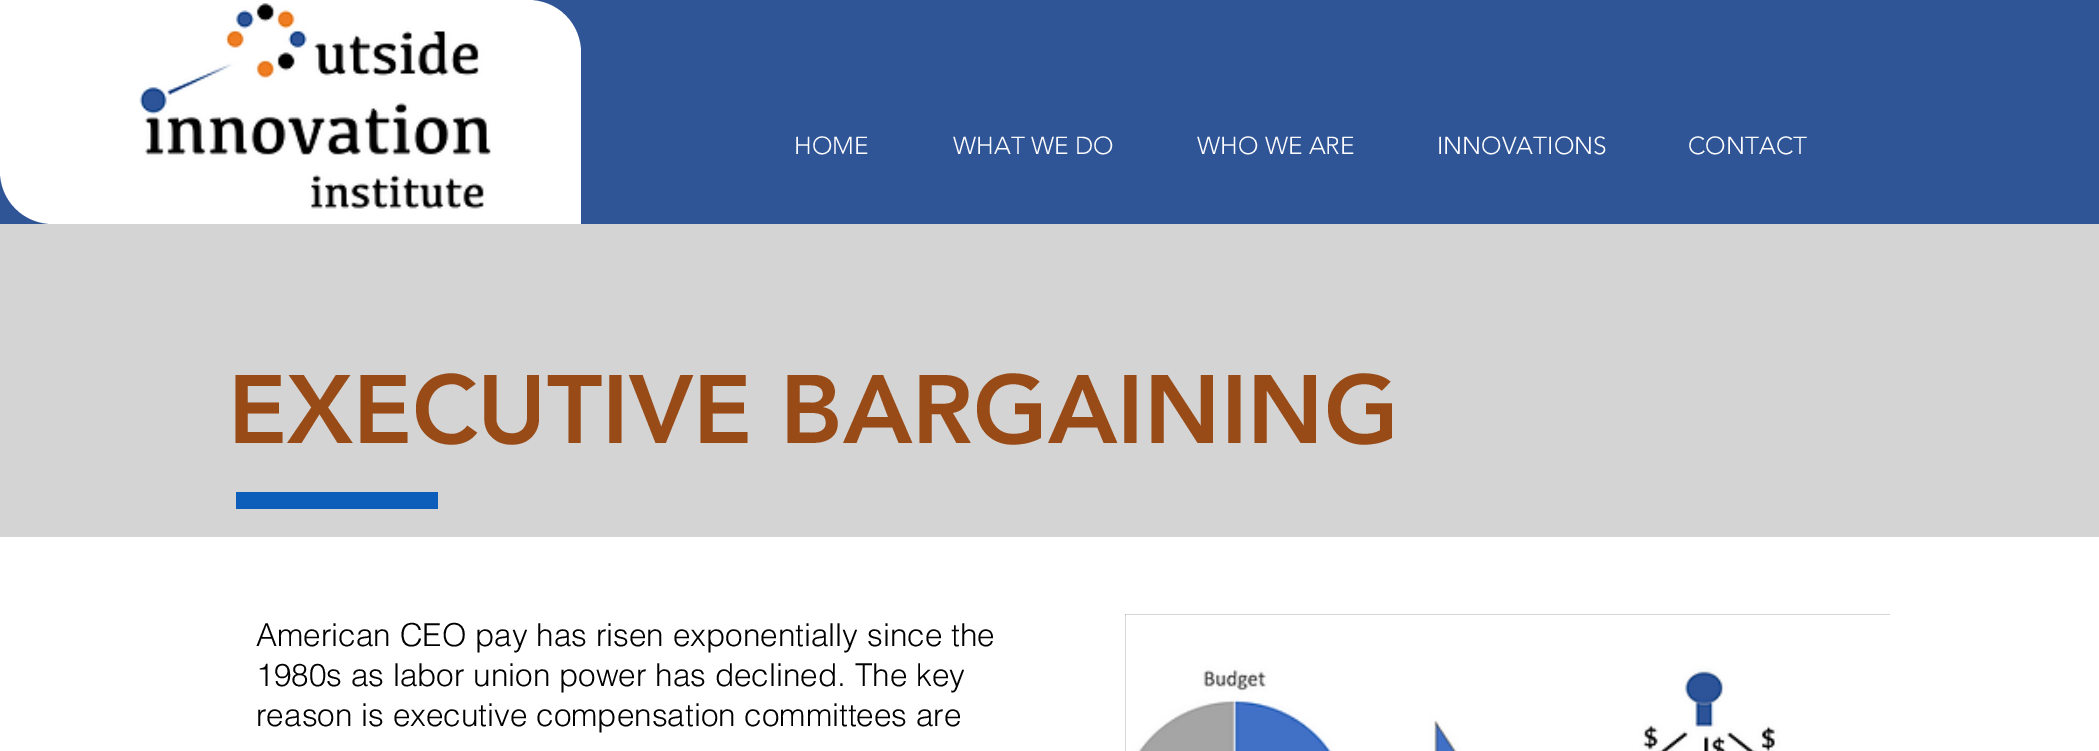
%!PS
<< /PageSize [2099 751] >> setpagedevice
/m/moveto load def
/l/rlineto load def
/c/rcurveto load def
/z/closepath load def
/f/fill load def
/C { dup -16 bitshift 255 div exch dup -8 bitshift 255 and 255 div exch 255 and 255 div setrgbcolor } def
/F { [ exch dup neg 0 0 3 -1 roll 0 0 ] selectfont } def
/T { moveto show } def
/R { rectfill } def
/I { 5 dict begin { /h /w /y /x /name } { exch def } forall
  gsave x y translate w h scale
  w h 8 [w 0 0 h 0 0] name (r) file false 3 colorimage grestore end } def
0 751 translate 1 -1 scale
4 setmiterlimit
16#D4D4D4 C
0 0 2099 751 R
16#2F5597 C
0 0 2099 224 R
16#FFFFFF C
0 0 m 528 0 l 29.5 0 53 23.5 53 53 c 0 171 l -528 0 l -29.5 0 -53 -23.5 -53 -53 c z f
(1.rgb) 139 3 352 206 I
/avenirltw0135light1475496-Light 24.5 F
(HOME) 794 154 T
(WHAT WE DO) 953 154 T
(WHO WE ARE) 1197 154 T
(INNOVATIONS) 1437 154 T
(CONTACT) 1688 154 T
/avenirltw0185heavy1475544-Black 96.25 F
16#994B17 C
(EXECUTIVE BARGAINING) 228 443 T
16#0D5EBA C
236 492 202 17 R
16#FFFFFF C
0 537 2099 214 R
/helvetica-Light 31.5 F
16#000000 C
(American CEO pay has risen exponentially since the) 256 646 T
(1980s as labor union power has declined. The key) 256 686 T
(reason is executive compensation committees are) 256 726 T
16#A0A09F C
1125 614 765 137 R
(2.rgb) 1125 614 765 137 I
showpage
